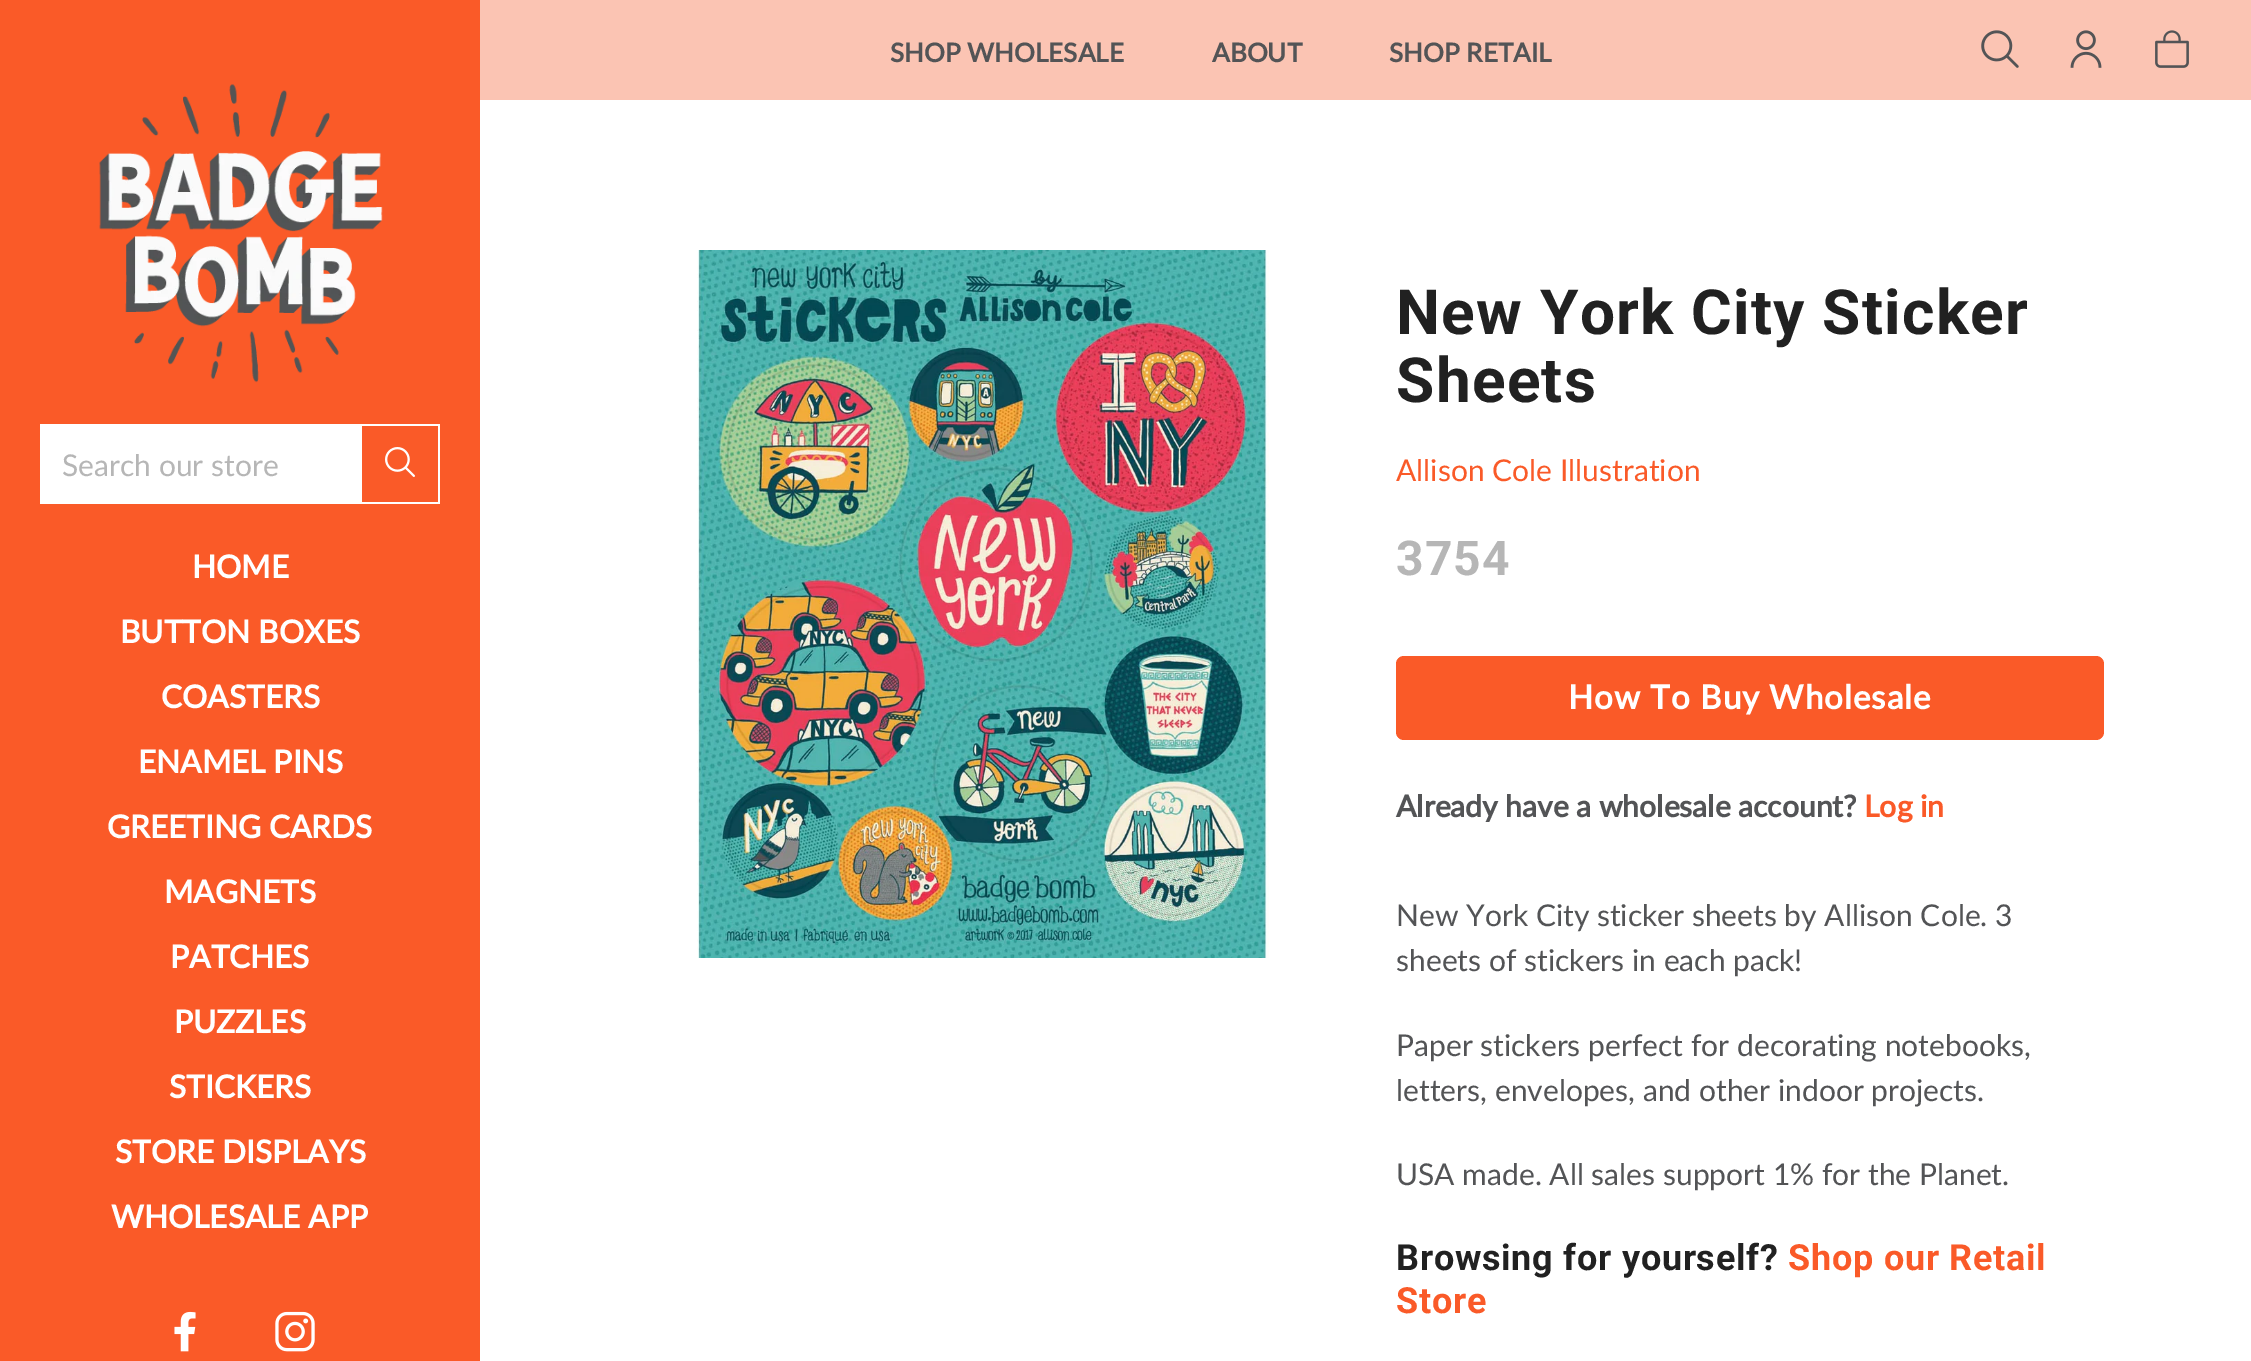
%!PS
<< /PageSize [2251 1361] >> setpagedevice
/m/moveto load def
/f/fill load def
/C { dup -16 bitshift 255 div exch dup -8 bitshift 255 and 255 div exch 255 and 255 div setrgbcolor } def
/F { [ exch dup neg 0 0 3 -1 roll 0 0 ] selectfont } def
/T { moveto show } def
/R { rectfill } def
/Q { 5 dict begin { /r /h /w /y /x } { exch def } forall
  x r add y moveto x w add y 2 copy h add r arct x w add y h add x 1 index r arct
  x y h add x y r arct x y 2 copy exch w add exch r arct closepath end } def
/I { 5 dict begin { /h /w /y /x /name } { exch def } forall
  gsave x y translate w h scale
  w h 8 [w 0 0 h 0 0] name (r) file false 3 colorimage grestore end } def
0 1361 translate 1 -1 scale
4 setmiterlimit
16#FFFFFF C
0 0 2251 1361 R
16#FA5A28 C
0 0 480 1361 R
(1.rgb) 99 84 284 299 I
16#FFFFFF C
40 424 400 80 R
/Lato-Regular 30 F
16#B6B6B6 C
(Search our store) 62 476 T
16#FA5A28 C
362 426 76 76 R
(2.rgb) 385 447 30 30 I
/Lato-Bold 31.5 F
16#FFFFFF C
(HOME) 192 578 T
(BUTTON BOXES) 120 643 T
(COASTERS) 161 708 T
(ENAMEL PINS) 138 773 T
(GREETING CARDS) 107 838 T
(MAGNETS) 164 903 T
(PATCHES) 170 968 T
(PUZZLES) 174 1033 T
(STICKERS) 169 1098 T
(STORE DISPLAYS) 115 1163 T
(WHOLESALE APP) 111 1228 T
(3.rgb) 174 1311 22 41 I
(4.rgb) 275 1311 40 41 I
16#FBC4B3 C
480 0 1771 100 R
/Lato-Bold 26 F
16#535456 C
(SHOP WHOLESALE) 890 62 T
(ABOUT) 1212 62 T
(SHOP RETAIL) 1389 62 T
(5.rgb) 1981 30 38 38 I
(6.rgb) 2070 30 32 38 I
(7.rgb) 2155 30 34 38 I
(8.rgb) 697 250 572 708 I
/Roboto-Bold 62.25 F
16#212121 C
1396 334 m 1.25 0 (New York City Sticker) ashow
1396 402 m 1.25 0 (Sheets) ashow
/Lato-Regular 30 F
16#FA5A28 C
(Allison Cole Illustration) 1396 481 T
/Roboto-Bold 48 F
16#B6B6B6 C
1396 575 m 1 0 (3754) ashow
16#FA5A28 C
1396 656 708 84 8 Q f
/Lato-Bold 33 F
16#FFFFFF C
1568 709 m 1 0 (How To Buy Wholesale) ashow
/Lato-Bold 30 F
16#535456 C
(Already have a wholesale account?) 1396 817 T
16#FA5A28 C
(Log in) 1864 817 T
/Lato-Regular 30 F
16#535456 C
(New York City sticker sheets by Allison Cole. 3) 1396 926 T
(sheets of stickers in each pack!) 1396 971 T
(Paper stickers perfect for decorating notebooks,) 1396 1056 T
(letters, envelopes, and other indoor projects.) 1396 1101 T
(USA made. All sales support 1% for the Planet.) 1396 1185 T
/Roboto-Bold 36 F
16#212121 C
1396 1270 m .75 0 (Browsing for yourself?) ashow
16#FA5A28 C
1788 1270 m .75 0 (Shop our Retail) ashow
1396 1313 m .75 0 (Store) ashow
showpage
